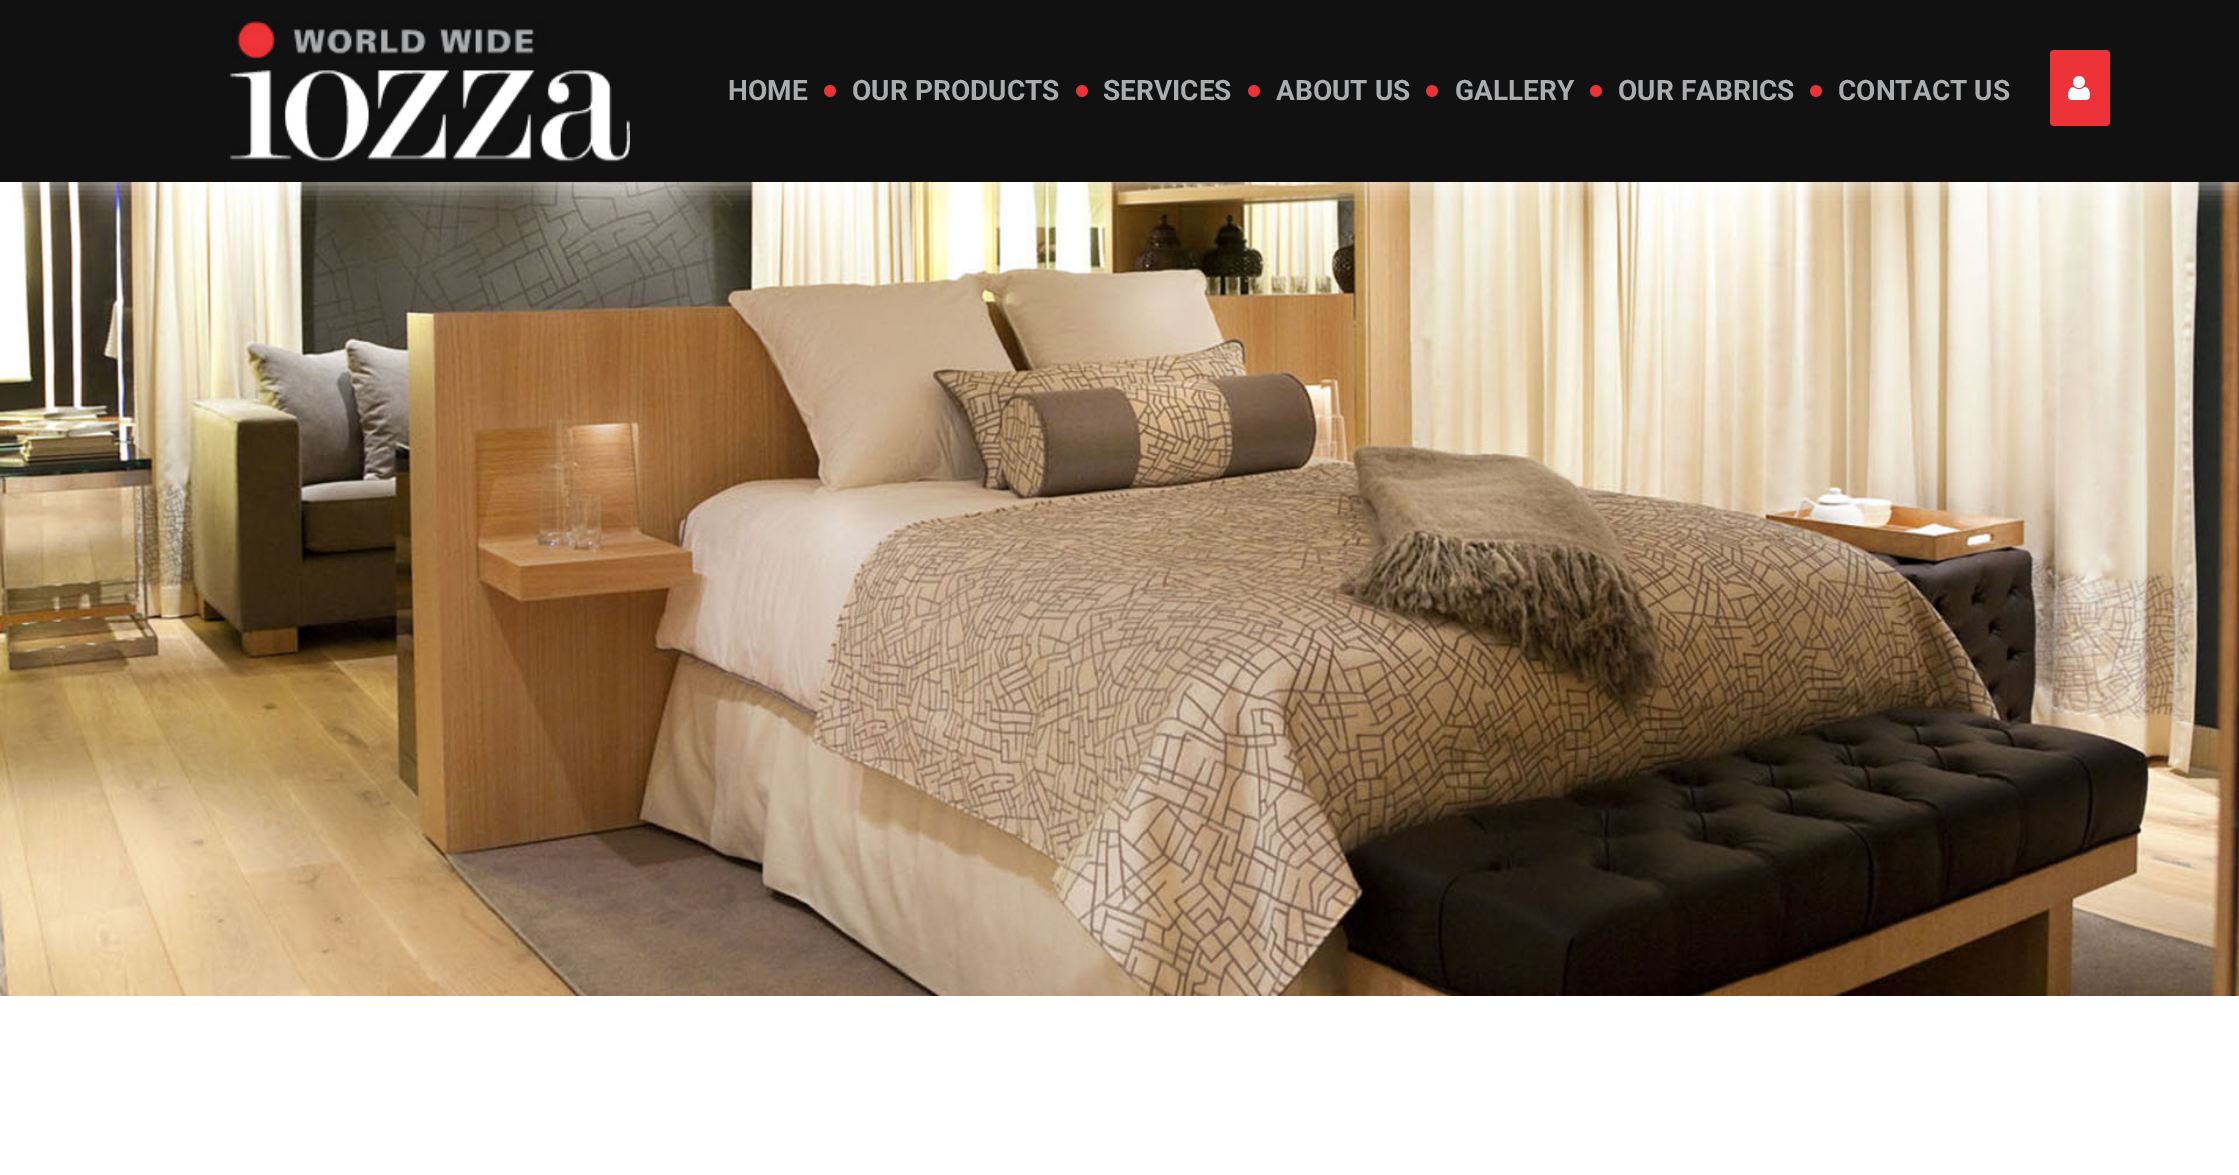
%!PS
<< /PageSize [2239 1175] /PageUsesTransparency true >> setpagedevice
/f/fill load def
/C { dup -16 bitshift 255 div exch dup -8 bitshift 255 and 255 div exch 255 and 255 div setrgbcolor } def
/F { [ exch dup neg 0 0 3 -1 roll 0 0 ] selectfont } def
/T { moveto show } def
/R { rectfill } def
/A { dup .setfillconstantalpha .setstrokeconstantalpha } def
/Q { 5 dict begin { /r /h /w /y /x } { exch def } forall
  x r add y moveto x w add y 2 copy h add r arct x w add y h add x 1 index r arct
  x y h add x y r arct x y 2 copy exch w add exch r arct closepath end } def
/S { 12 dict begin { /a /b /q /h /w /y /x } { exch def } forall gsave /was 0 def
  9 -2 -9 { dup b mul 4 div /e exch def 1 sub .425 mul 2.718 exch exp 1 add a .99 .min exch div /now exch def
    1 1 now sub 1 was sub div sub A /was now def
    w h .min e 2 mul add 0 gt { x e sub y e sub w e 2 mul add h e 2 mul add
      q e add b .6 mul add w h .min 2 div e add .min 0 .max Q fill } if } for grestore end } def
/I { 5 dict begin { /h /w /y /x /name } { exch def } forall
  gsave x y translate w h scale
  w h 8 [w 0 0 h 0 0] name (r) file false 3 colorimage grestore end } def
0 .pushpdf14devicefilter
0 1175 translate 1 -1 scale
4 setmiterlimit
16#FFFFFF C
0 0 2239 1175 R
(4.rgb) 0 182 2239 814 I
-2 -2 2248 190 0 10 .5 S
16#111111 C
0 0 2239 182 R
(1.rgb) 230 21 400 141 I
/Roboto-Bold 28 F
16#AAACAE C
(HOME) 728 100 T
(2.rgb) 824 85 12 12 I
(OUR PRODUCTS) 852 100 T
(2.rgb) 1076 85 12 12 I
(SERVICES) 1103 100 T
(2.rgb) 1248 85 12 12 I
(ABOUT US) 1276 100 T
(2.rgb) 1426 85 12 12 I
(GALLERY) 1455 100 T
(2.rgb) 1590 85 12 12 I
(OUR FABRICS) 1618 100 T
(2.rgb) 1810 85 12 12 I
(CONTACT US) 1838 100 T
16#EE3338 C
2050 50 60 76 4 Q f
(3.rgb) 2068 76 22 24 I
.poppdf14devicefilter showpage
